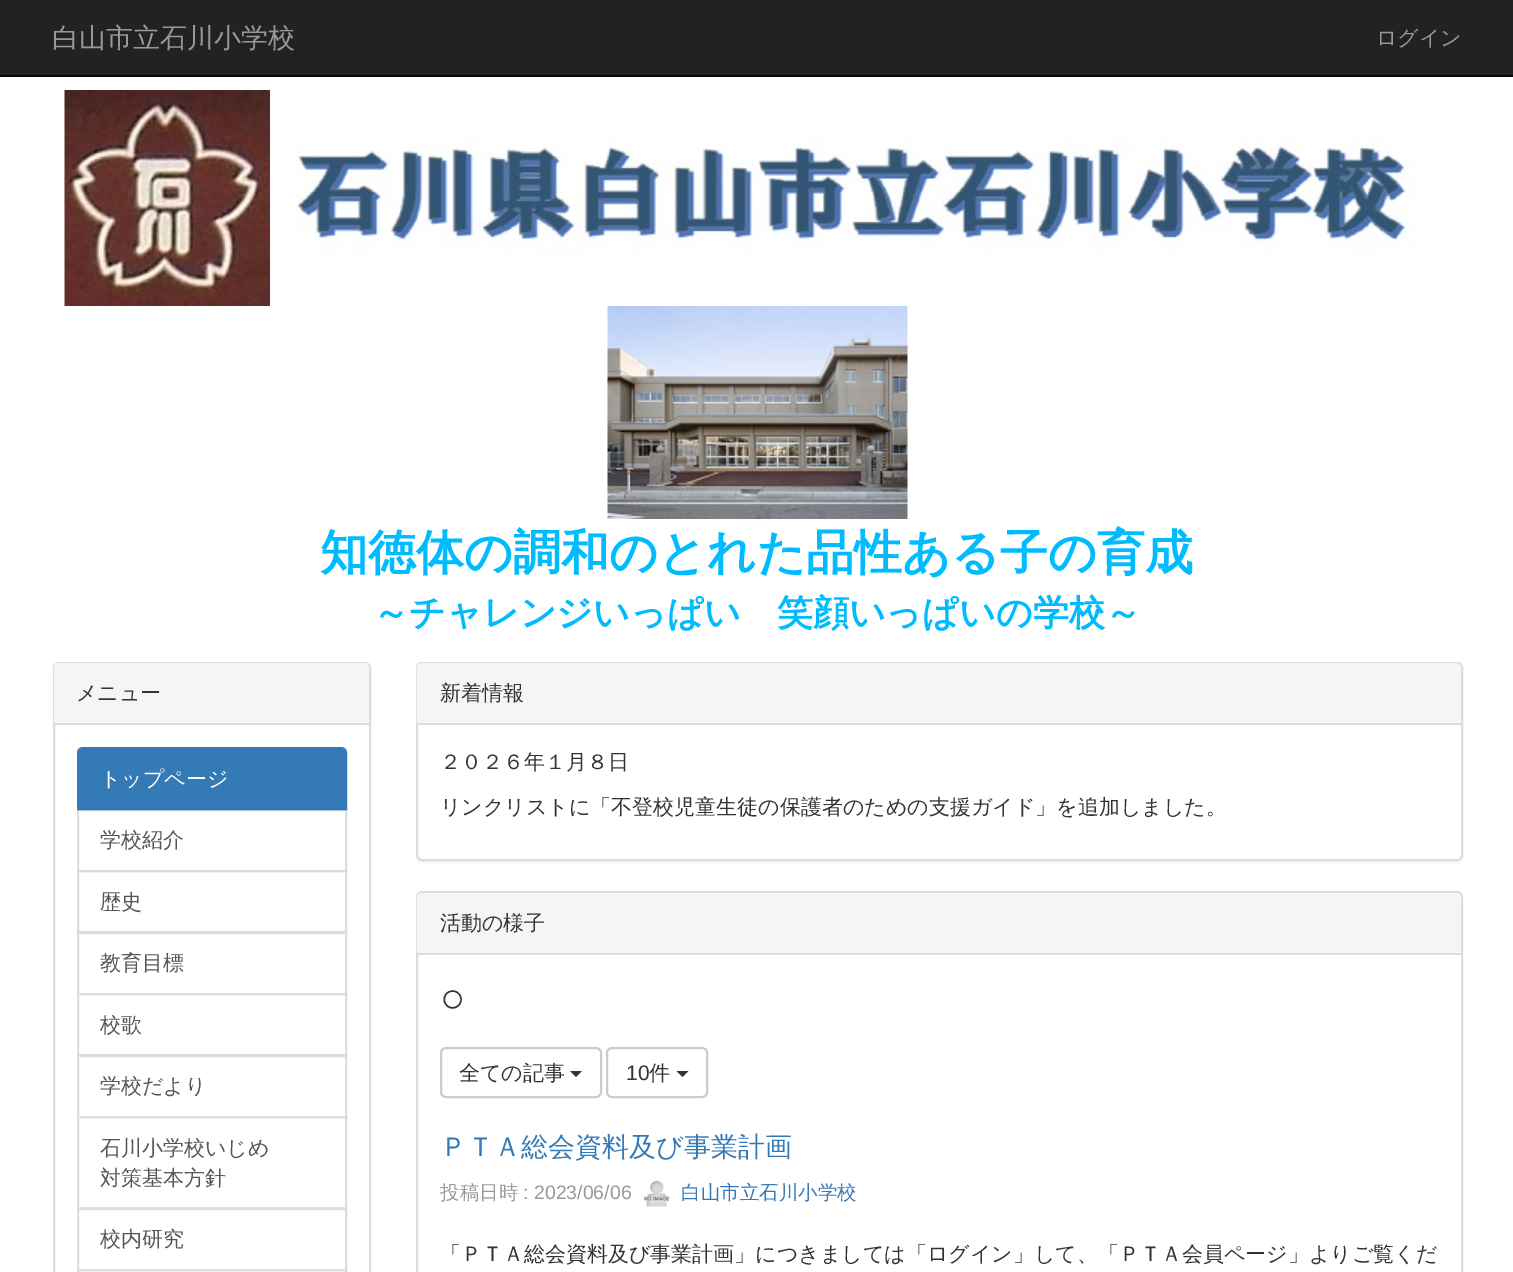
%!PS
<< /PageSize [1513 1272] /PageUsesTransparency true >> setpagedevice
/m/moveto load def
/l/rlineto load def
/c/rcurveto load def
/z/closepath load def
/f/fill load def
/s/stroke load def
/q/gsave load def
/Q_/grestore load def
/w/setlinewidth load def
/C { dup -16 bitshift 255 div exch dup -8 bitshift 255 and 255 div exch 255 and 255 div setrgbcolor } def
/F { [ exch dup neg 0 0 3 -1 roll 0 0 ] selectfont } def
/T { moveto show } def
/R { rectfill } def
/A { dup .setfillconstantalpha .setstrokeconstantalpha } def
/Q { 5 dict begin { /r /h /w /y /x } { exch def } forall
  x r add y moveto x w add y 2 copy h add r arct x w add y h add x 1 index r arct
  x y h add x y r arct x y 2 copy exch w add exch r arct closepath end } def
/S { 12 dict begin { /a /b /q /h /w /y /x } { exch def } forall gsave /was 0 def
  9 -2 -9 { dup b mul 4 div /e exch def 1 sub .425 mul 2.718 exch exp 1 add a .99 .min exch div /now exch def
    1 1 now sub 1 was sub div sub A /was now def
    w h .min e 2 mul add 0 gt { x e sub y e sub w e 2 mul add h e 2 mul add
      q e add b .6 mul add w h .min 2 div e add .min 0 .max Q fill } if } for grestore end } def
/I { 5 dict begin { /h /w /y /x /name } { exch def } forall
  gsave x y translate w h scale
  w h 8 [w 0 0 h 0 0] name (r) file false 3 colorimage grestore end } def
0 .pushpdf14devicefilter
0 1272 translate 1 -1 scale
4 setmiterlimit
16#FFFFFF C
0 0 1513 1272 R
16#222222 C
0 0 1513 75 R
16#080808 C
0 75 1513 2 R
/WenQuanYiZenHei-Medium 27 F
16#999999 C
(白山市立石川小学校) 52 47 T
/WenQuanYiZenHei-Medium 21 F
(ログイン) 1376 45 T
(1.rgb) 64 90 206 216 I
(2.rgb) 294 136 1128 121 I
(3.rgb) 607 306 301 213 I
/WenQuanYiZenHei-Bold 48 F
16#00BCFF C
(知徳体の調和のとれた品性ある子の育成) 320 569 T
/WenQuanYiZenHei-Bold 36 F
(～チャレンジいっぱい　笑顔いっぱいの学校～) 373 625 T
16#DDDDDD C
2 w
54 663 316 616 5 Q s
16#F5F5F5 C
59 663 m 305 0 l 3 0 5 2 5 5 c 0 57 l -315 0 l 0 -57 l 0 -3 2 -5 5 -5 c z f
16#DDDDDD C
54 723 315 2 R
/WenQuanYiZenHei-Medium 21 F
16#333333 C
(メニュー) 76 700 T
16#DDDDDD C
78 810 268 61 rectstroke
16#337AB7 C
83 748 m 258 0 l 3 0 5 2 5 5 c 0 56 l -268 0 l 0 -56 l 0 -3 2 -5 5 -5 c z q f Q_
s
16#FFFFFF C
(トップページ) 100 786 T
16#555555 C
(学校紹介) 100 847 T
16#DDDDDD C
78 871 268 61 rectstroke
16#555555 C
(歴史) 100 909 T
16#DDDDDD C
78 933 268 61 rectstroke
16#555555 C
(教育目標) 100 970 T
16#DDDDDD C
78 994 268 61 rectstroke
16#555555 C
(校歌) 100 1032 T
16#DDDDDD C
78 1056 268 61 rectstroke
16#555555 C
(学校だより) 100 1093 T
16#DDDDDD C
78 1117 268 91 rectstroke
16#555555 C
(石川小学校いじめ) 100 1155 T
(対策基本方針) 100 1185 T
16#DDDDDD C
78 1209 268 61 rectstroke
16#555555 C
(校内研究) 100 1246 T
16#DDDDDD C
78 1270 268 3 rectstroke
16#000000 C
416 663 1047 200 6 1 .05 S
16#FFFFFF C
417 663 1045 197 5 Q q f Q_
16#DDDDDD C
s
16#F5F5F5 C
422 663 m 1034 0 l 3 0 5 2 5 5 c 0 57 l -1044 0 l 0 -57 l 0 -3 2 -5 5 -5 c z f
16#DDDDDD C
417 723 1044 2 R
16#333333 C
(新着情報) 440 700 T
(２０２６年１月８日) 440 769 T
(リンクリストに「不登校児童生徒の保護者のための支援ガイド」を追加しました。) 440 814 T
16#DDDDDD C
417 892 1045 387 5 Q s
16#F5F5F5 C
422 893 m 1034 0 l 3 0 5 2 5 5 c 0 56 l -1044 0 l 0 -56 l 0 -3 2 -5 5 -5 c z f
16#DDDDDD C
417 953 1044 2 R
16#333333 C
(活動の様子) 440 930 T
/LiberationSans-Regular 42 F
(○) 440 1012 T
16#CCCCCC C
441 1048 160 49 5 Q s
/WenQuanYiZenHei-Medium 21 F
16#333333 C
(全ての記事) 459 1080 T
570 1071 m 12 0 l -6 6 l z f
16#CCCCCC C
607 1048 100 49 5 Q s
/LiberationSans-Regular 21 F
16#333333 C
(10) 626 1080 T
/WenQuanYiZenHei-Medium 21 F
(件) 649 1080 T
676.5 1071 m 12 0 l -6 6 l z f
/WenQuanYiZenHei-Medium 27 F
16#337AB7 C
(ＰＴＡ総会資料及び事業計画) 440 1156 T
/WenQuanYiZenHei-Medium 19.5 F
16#999999 C
(投稿日時) 440 1199 T
/LiberationSans-Regular 19.5 F
(: 2023/06/06) 523 1199 T
(4.rgb) 643 1180 27 27 I
/WenQuanYiZenHei-Medium 19.5 F
16#337AB7 C
(白山市立石川小学校) 681 1199 T
/WenQuanYiZenHei-Medium 21 F
16#333333 C
(「ＰＴＡ総会資料及び事業計画」につきましては「ログイン」して、「ＰＴＡ会員ページ」よりご覧くだ) 440 1261 T
.poppdf14devicefilter showpage
